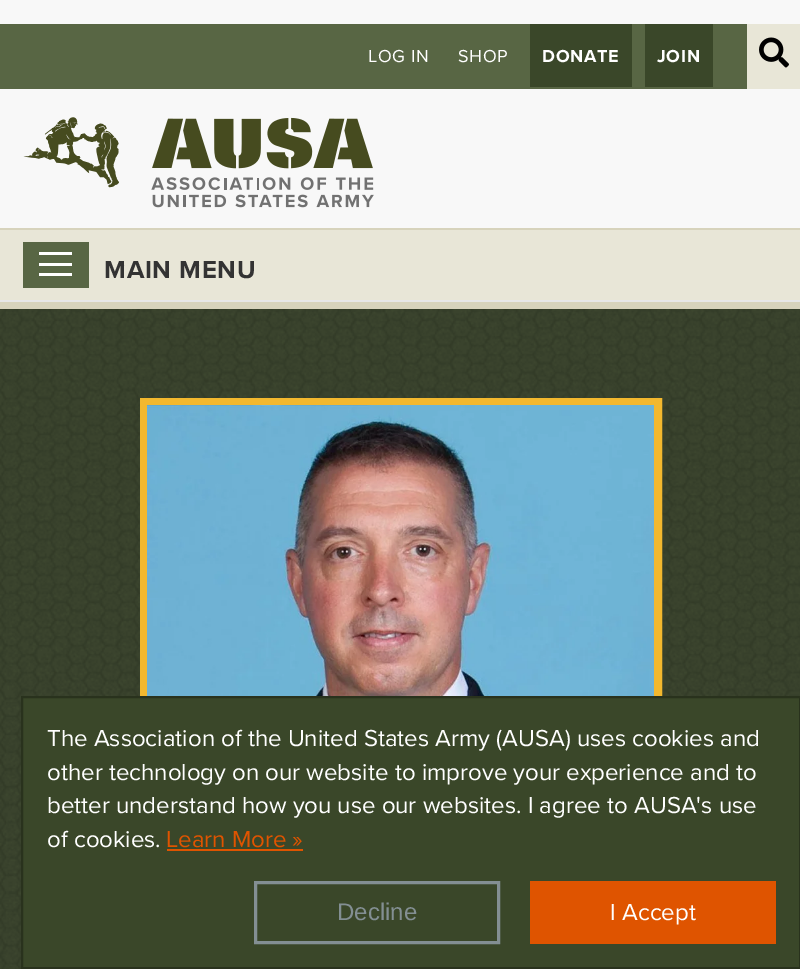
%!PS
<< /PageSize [800 969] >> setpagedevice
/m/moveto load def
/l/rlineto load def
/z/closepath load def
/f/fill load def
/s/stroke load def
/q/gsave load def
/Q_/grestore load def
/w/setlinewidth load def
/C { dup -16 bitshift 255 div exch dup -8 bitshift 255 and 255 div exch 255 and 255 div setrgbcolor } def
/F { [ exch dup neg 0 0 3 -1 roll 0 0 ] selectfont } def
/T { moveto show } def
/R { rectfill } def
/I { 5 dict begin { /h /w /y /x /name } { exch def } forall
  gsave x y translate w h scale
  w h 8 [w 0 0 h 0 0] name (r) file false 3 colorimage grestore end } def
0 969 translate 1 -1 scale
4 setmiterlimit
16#F8F8F8 C
0 0 800 969 R
16#586644 C
0 24 747 65 R
/ProximaNova-Regular 18 F
16#FFFFFF C
368 62 m .75 0 (LOG IN) ashow
458 62 m .75 0 (SHOP) ashow
16#3A4729 C
530 24 102 63 R
/ProximaNova-Bold 18 F
16#FFFFFF C
542 62 m .75 0 (DONATE) ashow
16#3A4729 C
645 24 68 63 R
16#FFFFFF C
657 62 m .75 0 (JOIN) ashow
16#E8E6D7 C
747 24 53 65 R
(1.rgb) 759 37 30 31 I
(2.rgb) 23 117 96 71 I
(3.rgb) 151 117 223 91 I
0 230 800 70 R
16#D7D3BC C
0 228 800 2 R
0 302 800 7 R
16#586644 C
23 242 66 46 R
16#FFFFFF C
39 252 33 3 R
39 263 33 3 R
39 273 33 3 R
/ProximaNova-Bold 25.5 F
16#333333 C
104 278 m .75 0 (MAIN MENU) ashow
16#E7E7E7 C
0 300 800 2 R
(4.rgb) 0 309 800 660 I
16#F3B82E C
8 w
144 402 514 412 rectstroke
(5.rgb) 147 405 507 291 I
16#3A4729 C
22 697 m 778 0 l 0 271 l -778 0 l z q f Q_
16#29321D C
2 w
s
/ProximaNova-Regular 24 F
16#FFFFFF C
(The Association of the United States Army \(AUSA\) uses cookies and) 47 746 T
(other technology on our website to improve your experience and to) 47 780 T
(better understand how you use our websites. I agree to AUSA's use) 47 813 T
(of cookies.) 47 847 T
16#DF5400 C
(Learn More ») 166 847 T
167 849 136 2 R
16#838F93 C
3 w
255.5 882.5 243 60 rectstroke
/LiberationSans-Regular 24 F
(Decline) 337 920 T
16#DF5400 C
530 881 246 63 R
/ProximaNova-Regular 24 F
16#FFFFFF C
(I Accept) 610 920 T
showpage
